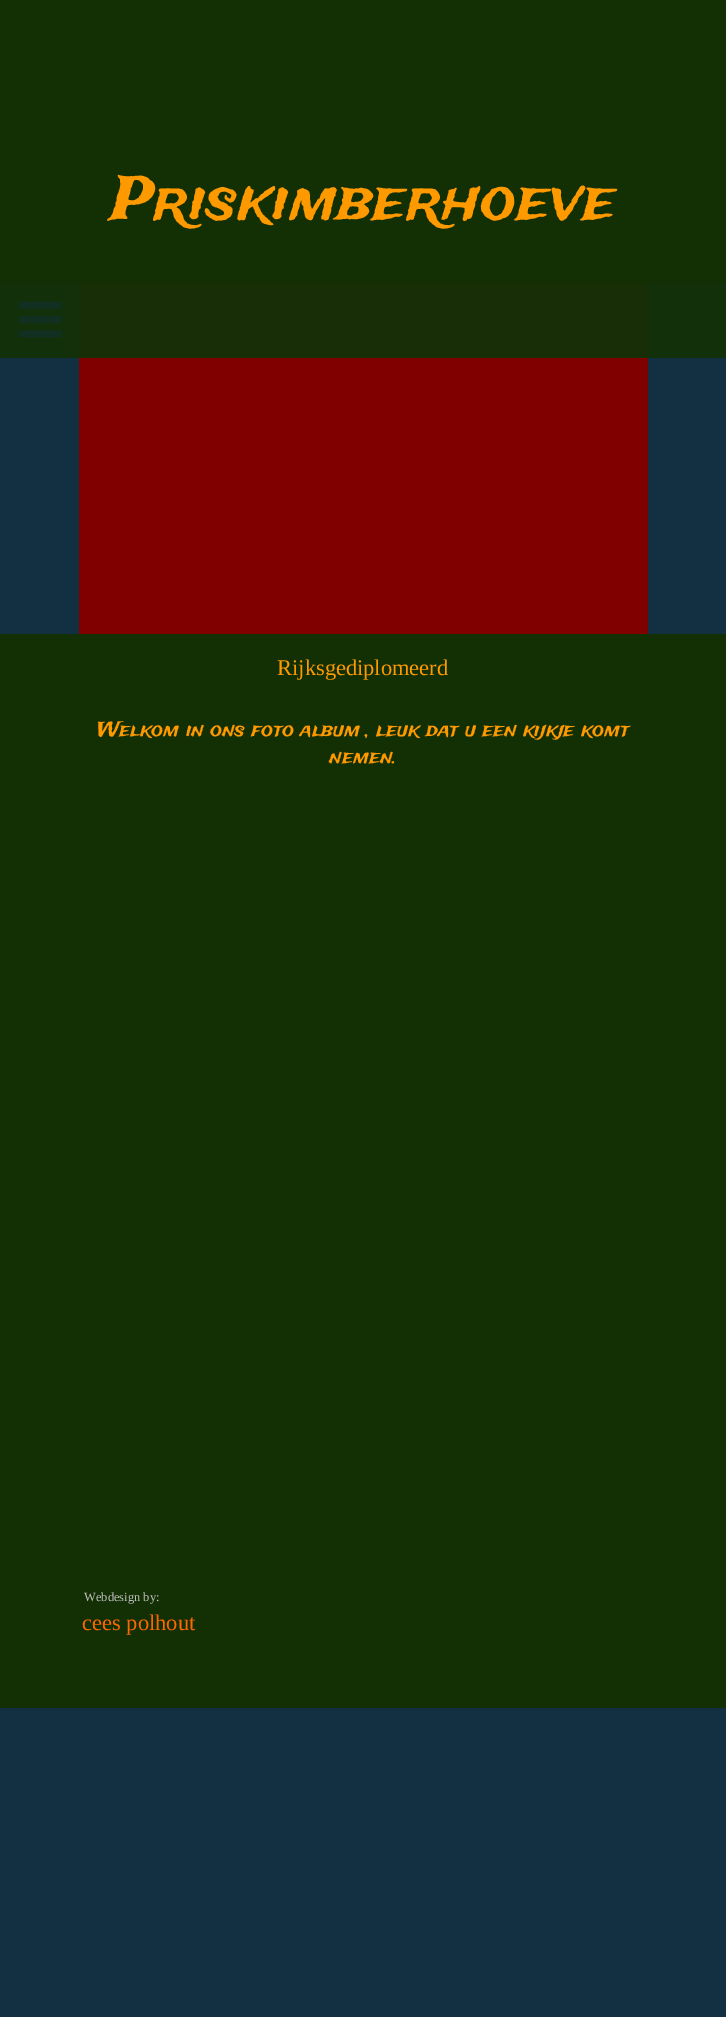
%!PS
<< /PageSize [726 2017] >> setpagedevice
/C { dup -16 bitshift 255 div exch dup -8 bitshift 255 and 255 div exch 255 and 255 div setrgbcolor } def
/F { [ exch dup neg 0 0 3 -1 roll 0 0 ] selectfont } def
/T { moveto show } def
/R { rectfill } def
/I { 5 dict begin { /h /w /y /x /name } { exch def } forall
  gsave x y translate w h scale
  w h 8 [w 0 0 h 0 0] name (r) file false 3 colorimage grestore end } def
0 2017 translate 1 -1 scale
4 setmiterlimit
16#123041 C
0 0 726 2017 R
16#123009 C
0 283 726 75 R
16#123003 C
0 0 726 283 R
/TradeWinds-Regular 60 F
16#FF9900 C
(Priskimberhoeve) 111 219 T
(1.rgb) 18 301 44 37 I
16#800000 C
79 358 569 276 R
16#182E06 C
79 283 569 75 R
16#123004 C
0 634 726 65 R
/LiberationSerif-Regular 22.5 F
16#FF9900 C
(Rijksgediplomeerd) 277 675 T
16#123003 C
0 699 726 1009 R
/TradeWinds-Regular 20 F
16#FF9900 C
(Welkom in ons foto album , leuk dat u een kijkje komt) 97 736 T
(nemen.) 329 763 T
/LiberationSerif-Regular 12.5 F
16#C0C0C0 C
(Webdesign by:) 84 1601 T
/LiberationSerif-Regular 22.5 F
16#FF6600 C
(cees polhout) 82 1630 T
showpage
